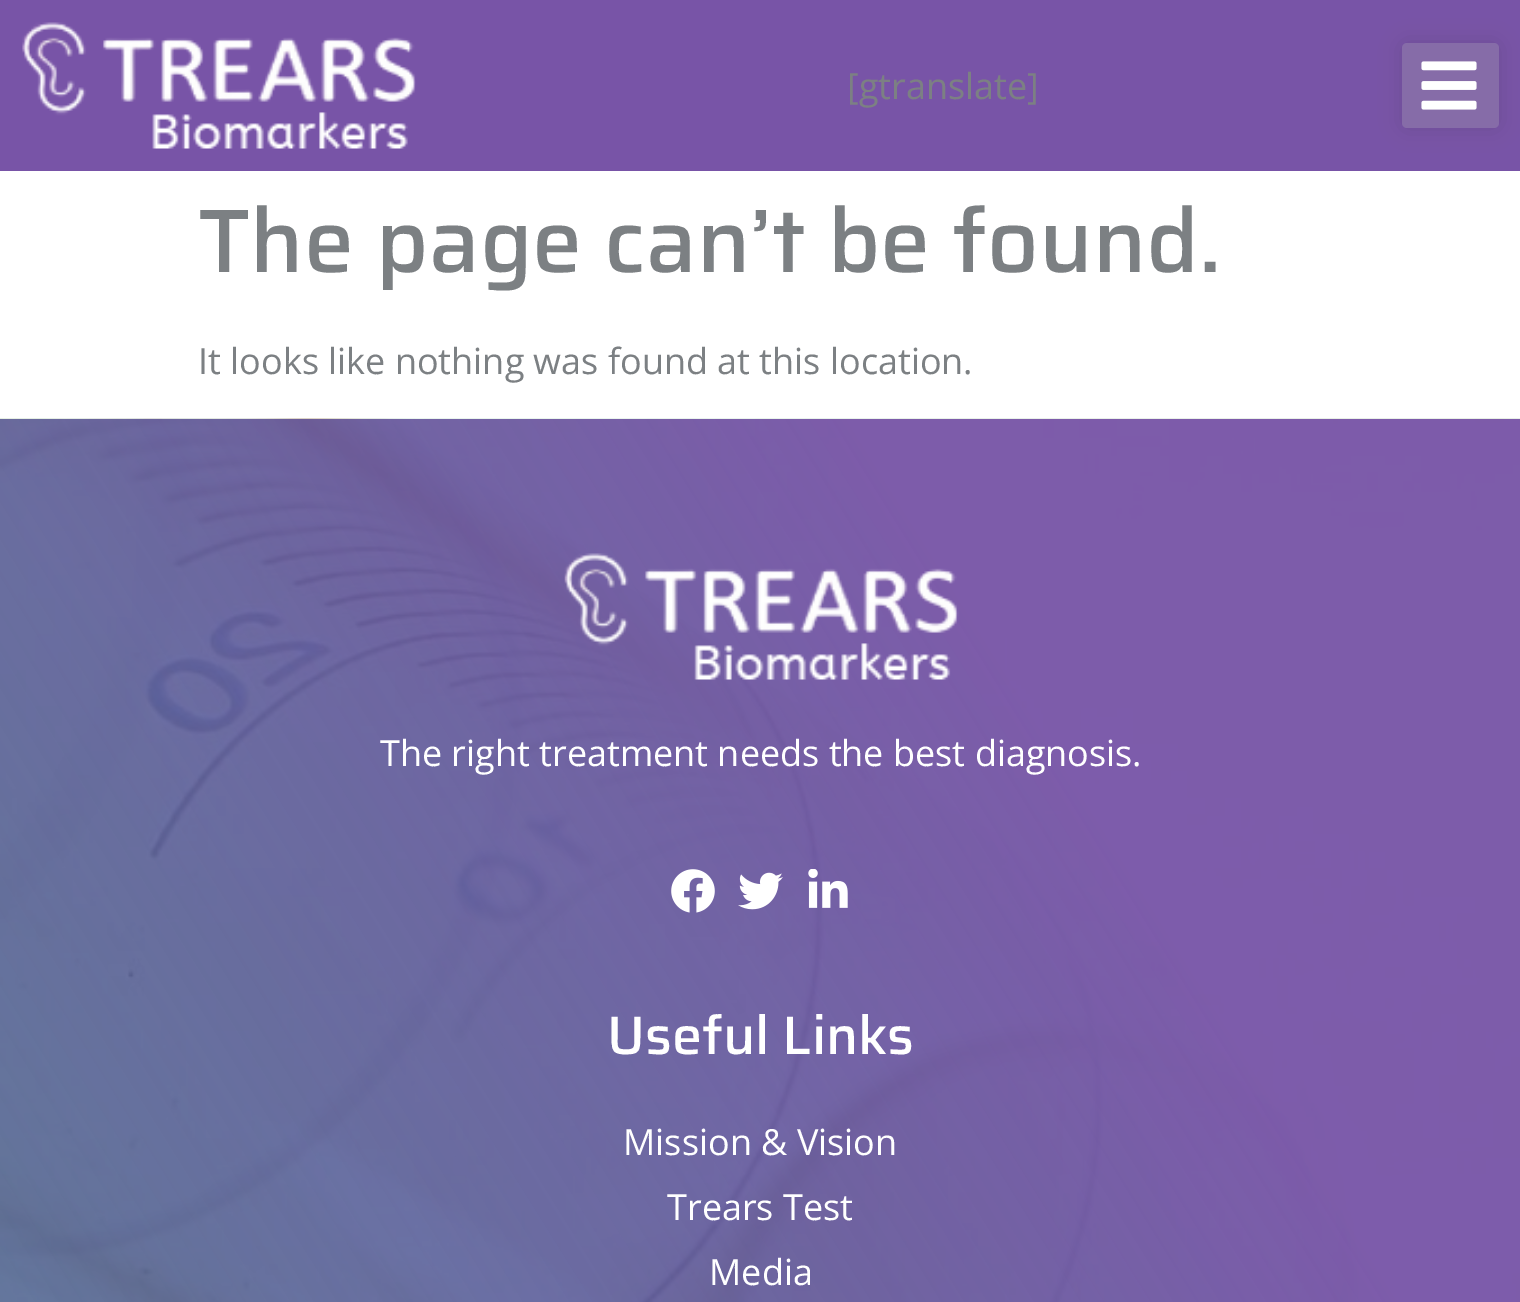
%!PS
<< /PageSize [1520 1302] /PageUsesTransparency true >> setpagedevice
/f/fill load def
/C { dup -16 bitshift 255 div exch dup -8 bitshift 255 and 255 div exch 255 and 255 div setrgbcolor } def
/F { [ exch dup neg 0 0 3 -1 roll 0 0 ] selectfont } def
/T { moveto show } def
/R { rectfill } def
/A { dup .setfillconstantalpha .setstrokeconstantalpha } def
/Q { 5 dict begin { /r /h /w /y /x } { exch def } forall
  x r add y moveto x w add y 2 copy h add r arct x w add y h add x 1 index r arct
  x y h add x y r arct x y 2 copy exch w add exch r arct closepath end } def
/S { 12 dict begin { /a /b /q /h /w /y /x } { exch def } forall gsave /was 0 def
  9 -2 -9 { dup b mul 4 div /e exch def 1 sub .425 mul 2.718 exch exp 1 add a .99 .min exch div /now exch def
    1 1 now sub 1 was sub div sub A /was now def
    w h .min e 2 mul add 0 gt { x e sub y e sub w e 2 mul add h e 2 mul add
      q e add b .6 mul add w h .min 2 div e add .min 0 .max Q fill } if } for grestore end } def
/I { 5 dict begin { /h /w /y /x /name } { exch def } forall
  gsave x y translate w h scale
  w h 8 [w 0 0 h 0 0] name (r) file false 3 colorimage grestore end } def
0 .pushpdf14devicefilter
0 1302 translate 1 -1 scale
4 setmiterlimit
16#FFFFFF C
0 0 1520 1302 R
16#7854A7 C
0 0 1520 171 R
(1.rgb) 22 22 394 127 I
/OpenSans-Regular 36 F
16#7C8083 C
([gtranslate]) 847 99 T
16#000000 C
1402 43 97 85 5 11 .1 S
16#866CA8 C
1402 43 97 85 5 Q f
(2.rgb) 1421 61 56 49 I
/Saira-Medium 90 F
16#7C8083 C
(The page can’t be found.) 198 272 T
/OpenSans-Regular 36 F
(It looks like nothing was found at this location.) 198 374 T
(3.rgb) 0 418 1520 884 I
(4.rgb) 564 553 395 127 I
16#FFFFFF C
(The right treatment needs the best diagnosis.) 380 766 T
(5.rgb) 671 869 44 44 I
(6.rgb) 738 872 45 38 I
(7.rgb) 808 869 40 39 I
/Saira-Medium 54 F
(Useful Links) 607 1054 T
/OpenSans-Regular 36 F
(Mission & Vision) 623 1155 T
(Trears Test) 667 1220 T
(Media) 709 1285 T
.poppdf14devicefilter showpage
